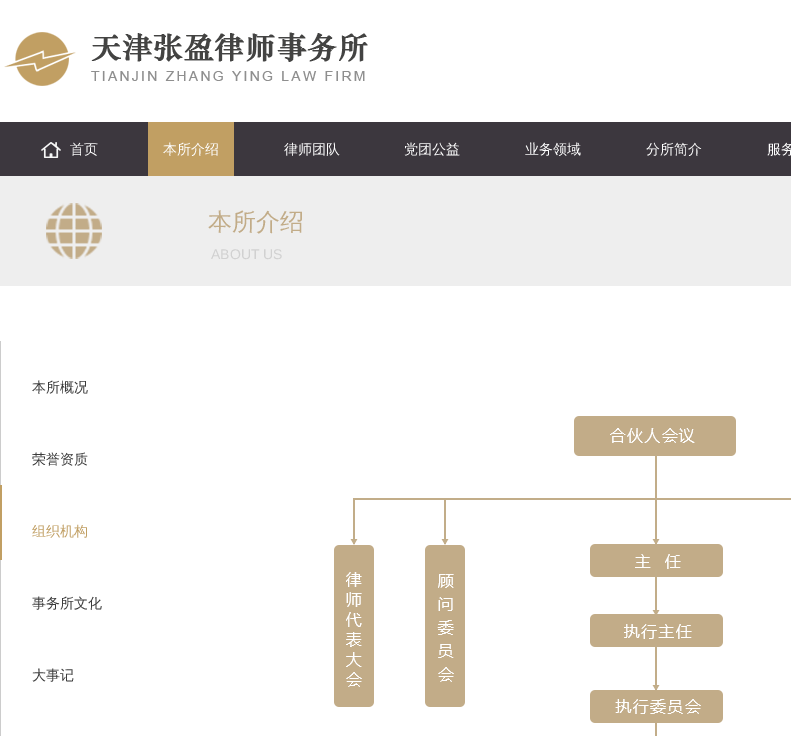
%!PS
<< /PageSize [791 736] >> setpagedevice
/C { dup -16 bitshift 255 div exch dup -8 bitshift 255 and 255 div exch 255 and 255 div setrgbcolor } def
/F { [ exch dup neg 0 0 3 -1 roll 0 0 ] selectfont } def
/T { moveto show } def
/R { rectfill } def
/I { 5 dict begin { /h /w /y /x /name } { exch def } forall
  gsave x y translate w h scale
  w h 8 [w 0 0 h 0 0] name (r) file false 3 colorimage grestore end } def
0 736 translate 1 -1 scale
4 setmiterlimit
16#FFFFFF C
0 0 791 736 R
(1.rgb) 4 32 364 54 I
16#3C373E C
0 122 791 54 R
(2.rgb) 41 142 20 16 I
/WenQuanYiZenHei-Medium 14 F
16#FEFEFE C
(首页) 70 154 T
16#C19F63 C
148 122 86 54 R
16#FEFEFE C
(本所介绍) 163 154 T
(律师团队) 284 154 T
(党团公益) 404 154 T
(业务领域) 525 154 T
(分所简介) 646 154 T
(服务) 767 154 T
16#EEEEEE C
0 176 791 110 R
(3.rgb) 46 203 56 56 I
/WenQuanYiZenHei-Medium 24 F
16#C2AC88 C
(本所介绍) 208 230 T
/LiberationSans-Regular 14 F
16#D1D1D1 C
(ABOUT US) 211 259 T
16#CCCCCC C
0 341 1 395 R
/WenQuanYiZenHei-Medium 14 F
16#3B3B3B C
(本所概况) 32 392 T
(荣誉资质) 32 464 T
16#C19F63 C
0 485 2 75 R
(组织机构) 32 536 T
16#3B3B3B C
(事务所文化) 32 608 T
(大事记) 32 680 T
(4.rgb) 334 416 457 320 I
showpage
